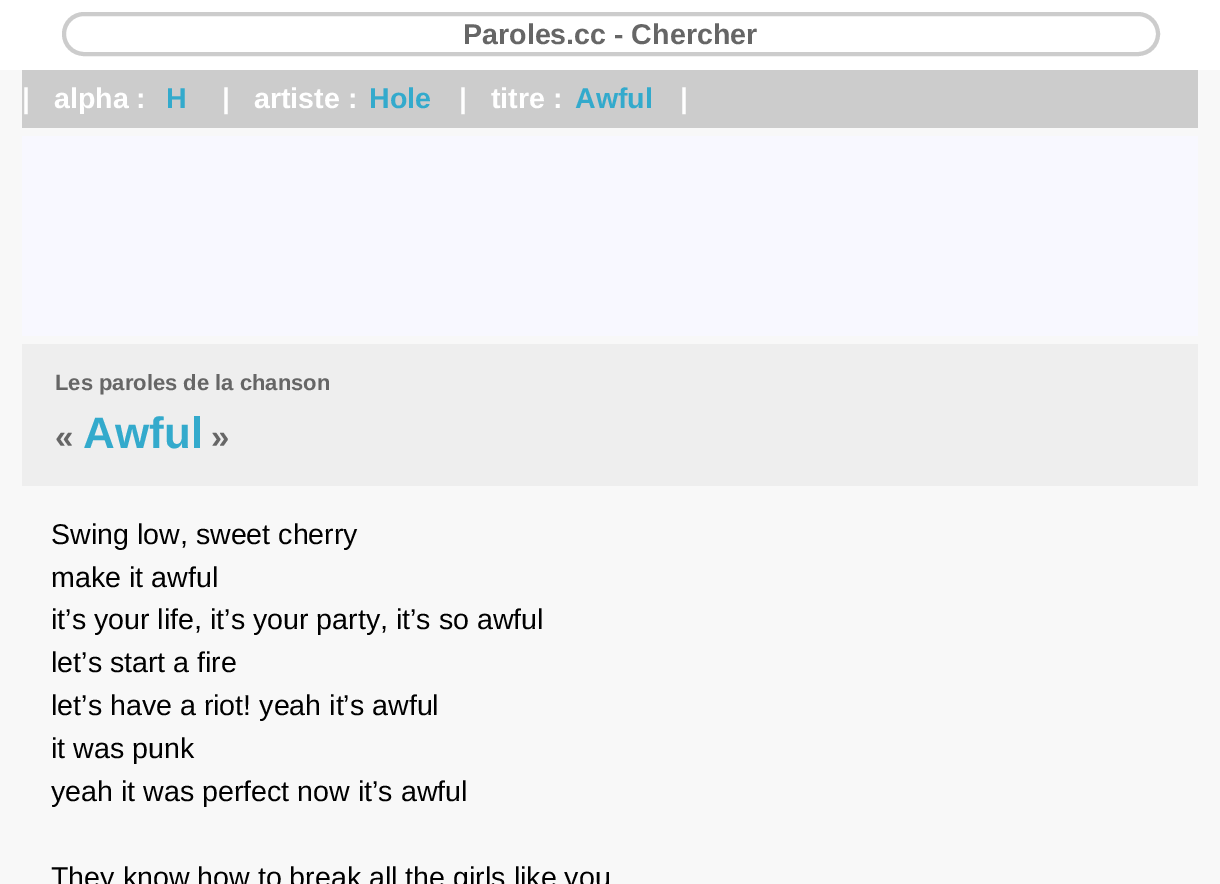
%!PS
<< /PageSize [1220 884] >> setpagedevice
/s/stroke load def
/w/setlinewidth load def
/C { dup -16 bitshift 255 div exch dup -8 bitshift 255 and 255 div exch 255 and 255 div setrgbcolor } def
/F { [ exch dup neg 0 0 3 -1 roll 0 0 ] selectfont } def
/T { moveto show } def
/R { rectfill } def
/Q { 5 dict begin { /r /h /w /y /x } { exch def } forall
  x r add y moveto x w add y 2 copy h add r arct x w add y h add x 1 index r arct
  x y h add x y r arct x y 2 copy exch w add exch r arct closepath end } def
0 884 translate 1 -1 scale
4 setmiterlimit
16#FFFFFF C
0 0 1220 884 R
16#CCCCCC C
4 w
64 14 1094 40 20 Q s
/LiberationSans-Bold 28.6 F
16#666666 C
(Paroles.cc - Chercher) 463 44 T
16#F8F8F8 C
0 70 1220 814 R
16#CCCCCC C
22 70 1176 58 R
16#FFFFFF C
(|   alpha :) 22 108 T
16#33AACC C
(H) 166 108 T
16#FFFFFF C
(|   artiste :) 222 108 T
16#33AACC C
(Hole) 369 108 T
16#FFFFFF C
(|   titre :) 459 108 T
16#33AACC C
(Awful) 575 108 T
16#FFFFFF C
(|) 680 108 T
16#F8F8FF C
22 136 1176 200 R
16#EEEEEE C
22 344 1176 142 R
/LiberationSans-Bold 22 F
16#666666 C
(Les paroles de la chanson) 55 390 T
/LiberationSans-Bold 33 F
(«) 55 448 T
/LiberationSans-Bold 44 F
16#33AACC C
(Awful) 83 448 T
/LiberationSans-Bold 33 F
16#666666 C
(») 211 448 T
/LiberationSans-Regular 28.6 F
16#000000 C
(Swing low, sweet cherry) 51 544 T
(make it awful) 51 587 T
(it’s your life, it’s your party, it’s so awful) 51 629 T
(let’s start a fire) 51 672 T
(let’s have a riot! yeah it’s awful) 51 715 T
(it was punk) 51 758 T
(yeah it was perfect now it’s awful) 51 801 T
(They know how to break all the girls like you) 51 887 T
showpage
